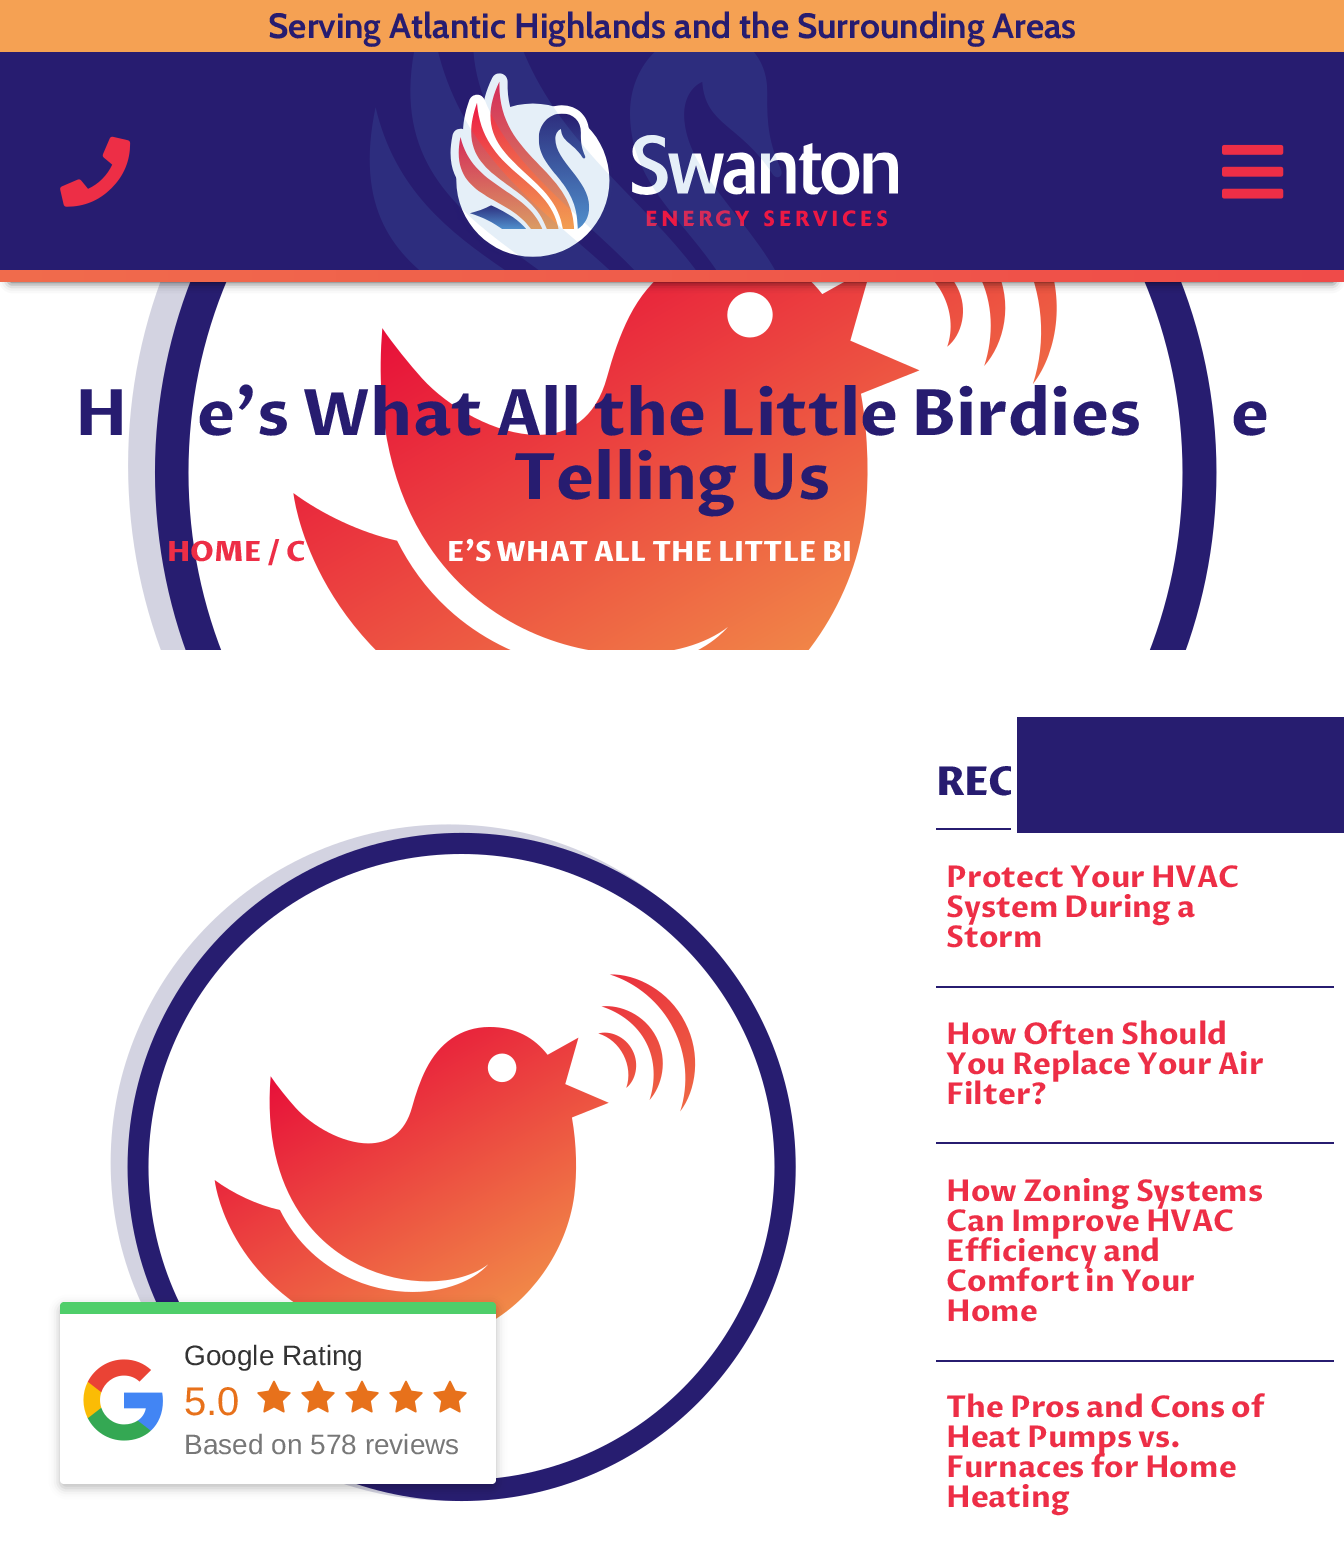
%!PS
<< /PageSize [1344 1544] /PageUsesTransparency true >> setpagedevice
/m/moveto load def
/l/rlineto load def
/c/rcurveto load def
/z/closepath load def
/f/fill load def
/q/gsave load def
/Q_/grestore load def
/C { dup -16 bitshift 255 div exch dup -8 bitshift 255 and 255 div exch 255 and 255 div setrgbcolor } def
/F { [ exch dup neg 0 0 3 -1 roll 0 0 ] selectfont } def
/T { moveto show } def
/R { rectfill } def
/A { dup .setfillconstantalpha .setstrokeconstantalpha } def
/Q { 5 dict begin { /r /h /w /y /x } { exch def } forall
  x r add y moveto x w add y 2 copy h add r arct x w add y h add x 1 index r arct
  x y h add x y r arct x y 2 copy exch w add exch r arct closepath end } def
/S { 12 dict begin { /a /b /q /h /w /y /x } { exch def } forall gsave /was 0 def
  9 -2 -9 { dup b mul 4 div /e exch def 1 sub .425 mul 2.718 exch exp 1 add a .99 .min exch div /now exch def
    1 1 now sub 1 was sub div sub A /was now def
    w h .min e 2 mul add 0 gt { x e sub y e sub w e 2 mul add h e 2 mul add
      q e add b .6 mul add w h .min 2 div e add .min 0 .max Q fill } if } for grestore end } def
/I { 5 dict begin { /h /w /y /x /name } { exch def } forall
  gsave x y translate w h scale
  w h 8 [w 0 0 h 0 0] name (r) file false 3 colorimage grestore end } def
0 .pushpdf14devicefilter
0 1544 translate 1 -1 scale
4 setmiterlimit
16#FFFFFF C
0 0 1344 1544 R
16#F5A153 C
0 0 1344 52 R
/Cabin-Bold 35.2 F
16#271C70 C
(Serving Atlantic Highlands and the Surrounding Areas) 268 38 T
(5.rgb) 128 282 1089 368 I
16#000000 C
10 72 1324 210 0 5 .75 S
16#271C70 C
0 52 1344 218 R
(1.rgb) 60 136 71 71 I
(3.rgb) 450 73 448 184 I
(2.rgb) 369 52 413 218 I
(4.rgb) 1222 144 62 55 I
q 0 270 m 1344 0 l 0 12 l -1344 0 l z clip newpath
<< /ShadingType 2 /ColorSpace /DeviceRGB /Coords [-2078 276 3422 276] /Extend [true true] /Function << /FunctionType 2 /Domain [0 1] /C0 [.949 .624 .322] /C1 [.929 .094 .267] /N 1 >> >> shfill Q_
/ProzaLibre-Bold 64 F
(H) 75 435 T
(e’s What All the Little Birdies) 197 435 T
(e) 1231 435 T
(Telling Us) 513 499 T
/ProzaLibre-ExtraBold 28 F
16#ED2E46 C
(HOME / C) 167 561 T
16#FFFFFF C
(E’S WHAT ALL THE LITTLE BI) 447 561 T
16#271D70 C
1017 717 327 116 R
/ProzaLibre-ExtraBold 40 F
16#271C70 C
936 795 m -1 0 (REC) ashow
16#FFFFFF C
1011 711 m 0 128 l 333 0 l 0 -6 l -327 0 l 0 -116 l 327 0 l 0 -6 l z f
(6.rgb) 110 824 686 678 I
16#271C70 C
936 828 75 2 R
/ProzaLibre-Bold 30 F
16#ED2E46 C
(Protect Your HVAC) 946 887 T
(System During a) 946 917 T
(Storm) 946 947 T
16#271C70 C
936 986 398 2 R
16#ED2E46 C
(How Often Should) 946 1044 T
(You Replace Your Air) 946 1074 T
(Filter?) 946 1104 T
16#271C70 C
936 1142 398 2 R
16#ED2E46 C
(How Zoning Systems) 946 1201 T
(Can Improve HVAC) 946 1231 T
(Efficiency and) 946 1261 T
(Comfort in Your) 946 1291 T
(Home) 946 1321 T
16#271C70 C
936 1360 398 2 R
16#ED2E46 C
(The Pros and Cons of) 946 1417 T
(Heat Pumps vs.) 946 1447 T
(Furnaces for Home) 946 1477 T
(Heating) 946 1507 T
16#000000 C
60 1306 436 182 4 5 .26 S
16#4FCE6A C
64 1302 m 428 0 l 2 0 4 2 4 4 c 0 8 l -436 0 l 0 -8 l 0 -2 2 -4 4 -4 c z f
16#FFFFFF C
60 1314 m 436 0 l 0 166 l 0 2 -2 4 -4 4 c -428 0 l -2 0 -4 -2 -4 -4 c z f
(7.rgb) 83 1359 80 82 I
/LiberationSans-Regular 28 F
16#333333 C
(Google Rating) 184 1365 T
/LiberationSans-Regular 40 F
16#E7711B C
(5.0) 184 1415 T
(8.rgb) 257 1380 34 33 I
(8.rgb) 301 1380 34 33 I
(8.rgb) 345 1380 34 33 I
(8.rgb) 389 1380 34 33 I
(8.rgb) 433 1380 34 33 I
/LiberationSans-Regular 28 F
16#777777 C
(Based on 578 reviews) 184 1454 T
.poppdf14devicefilter showpage
